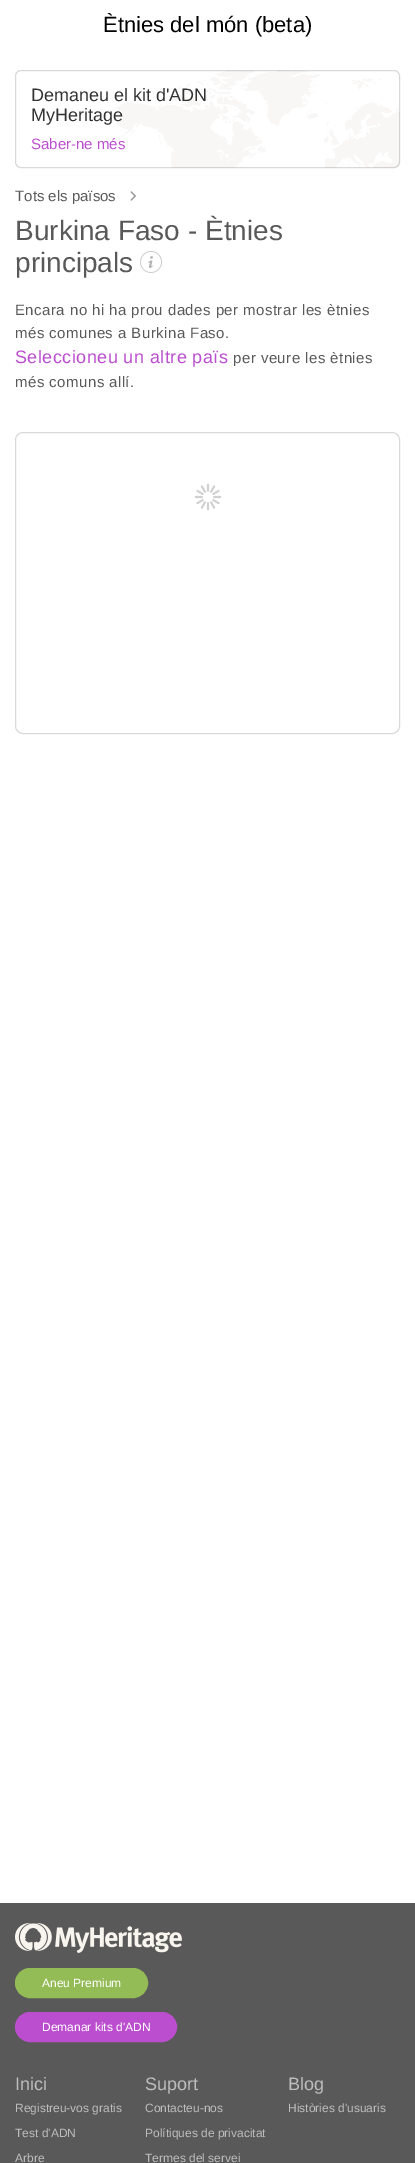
%!PS
<< /PageSize [415 2163] /PageUsesTransparency true >> setpagedevice
/m/moveto load def
/f/fill load def
/s/stroke load def
/q/gsave load def
/Q_/grestore load def
/C { dup -16 bitshift 255 div exch dup -8 bitshift 255 and 255 div exch 255 and 255 div setrgbcolor } def
/F { [ exch dup neg 0 0 3 -1 roll 0 0 ] selectfont } def
/T { moveto show } def
/R { rectfill } def
/A { dup .setfillconstantalpha .setstrokeconstantalpha } def
/Q { 5 dict begin { /r /h /w /y /x } { exch def } forall
  x r add y moveto x w add y 2 copy h add r arct x w add y h add x 1 index r arct
  x y h add x y r arct x y 2 copy exch w add exch r arct closepath end } def
/I { 5 dict begin { /h /w /y /x /name } { exch def } forall
  gsave x y translate w h scale
  w h 8 [w 0 0 h 0 0] name (r) file false 3 colorimage grestore end } def
0 .pushpdf14devicefilter
0 2163 translate 1 -1 scale
4 setmiterlimit
16#FFFFFF C
0 0 415 2163 R
/LiberationSans-Regular 22 F
16#000000 C
(Ètnies del món \(beta\)) 103 32 T
(1.rgb) 109 70 291 98 I
0.15 A
15.5 70.5 384 97 5.5 Q s
/LiberationSans-Regular 18 F
1 A
16#333333 C
(Demaneu el kit d'ADN) 31 101 T
(MyHeritage) 31 121 T
/LiberationSans-Regular 15 F
16#BB4ECE C
(Saber-ne més) 31 149 T
16#595959 C
(Tots els països) 15 201 T
(2.rgb) 130 191 6 10 I
/LiberationSans-Regular 28 F
(Burkina Faso - Ètnies) 15 240 T
(principals) 15 272 T
(3.rgb) 140 251 22 22 I
/LiberationSans-Regular 15 F
15 315 m .45 0 (Encara no hi ha prou dades per mostrar les ètnies) ashow
15 338 m .45 0 (més comunes a Burkina Faso.) ashow
/LiberationSans-Regular 18 F
16#BB4ECE C
15 363 m .45 0 (Seleccioneu un altre païs) ashow
/LiberationSans-Regular 15 F
16#595959 C
233 363 m .45 0 (per veure les ètnies) ashow
15 387 m .45 0 (més comuns allí.) ashow
16#D9D9D9 C
15.5 432.5 384 301 7.5 Q s
(4.rgb) 194 483 28 28 I
16#595959 C
0 1903 415 260 R
(5.rgb) 15 1923 167 30 I
16#93BC56 C
15.5 1968.5 132 29 14.5 Q q f Q_
s
/LiberationSans-Regular 12 F
16#FFFFFF C
(Aneu Premium) 42 1987 T
16#BB4ECE C
15.5 2012.5 161 29 14.5 Q q f Q_
s
16#FFFFFF C
(Demanar kits d'ADN) 42 2031 T
/LiberationSans-Regular 18 F
16#BDBDBD C
(Inici) 15 2090 T
/LiberationSans-Regular 12 F
(Registreu-vos gratis) 15 2112 T
(Test d'ADN) 15 2137 T
(Arbre) 15 2162 T
/LiberationSans-Regular 18 F
(Suport) 145 2090 T
/LiberationSans-Regular 12 F
(Contacteu-nos) 145 2112 T
(Polítiques de privacitat) 145 2137 T
(Termes del servei) 145 2162 T
/LiberationSans-Regular 18 F
(Blog) 288 2090 T
/LiberationSans-Regular 12 F
(Històries d'usuaris) 288 2112 T
.poppdf14devicefilter showpage
